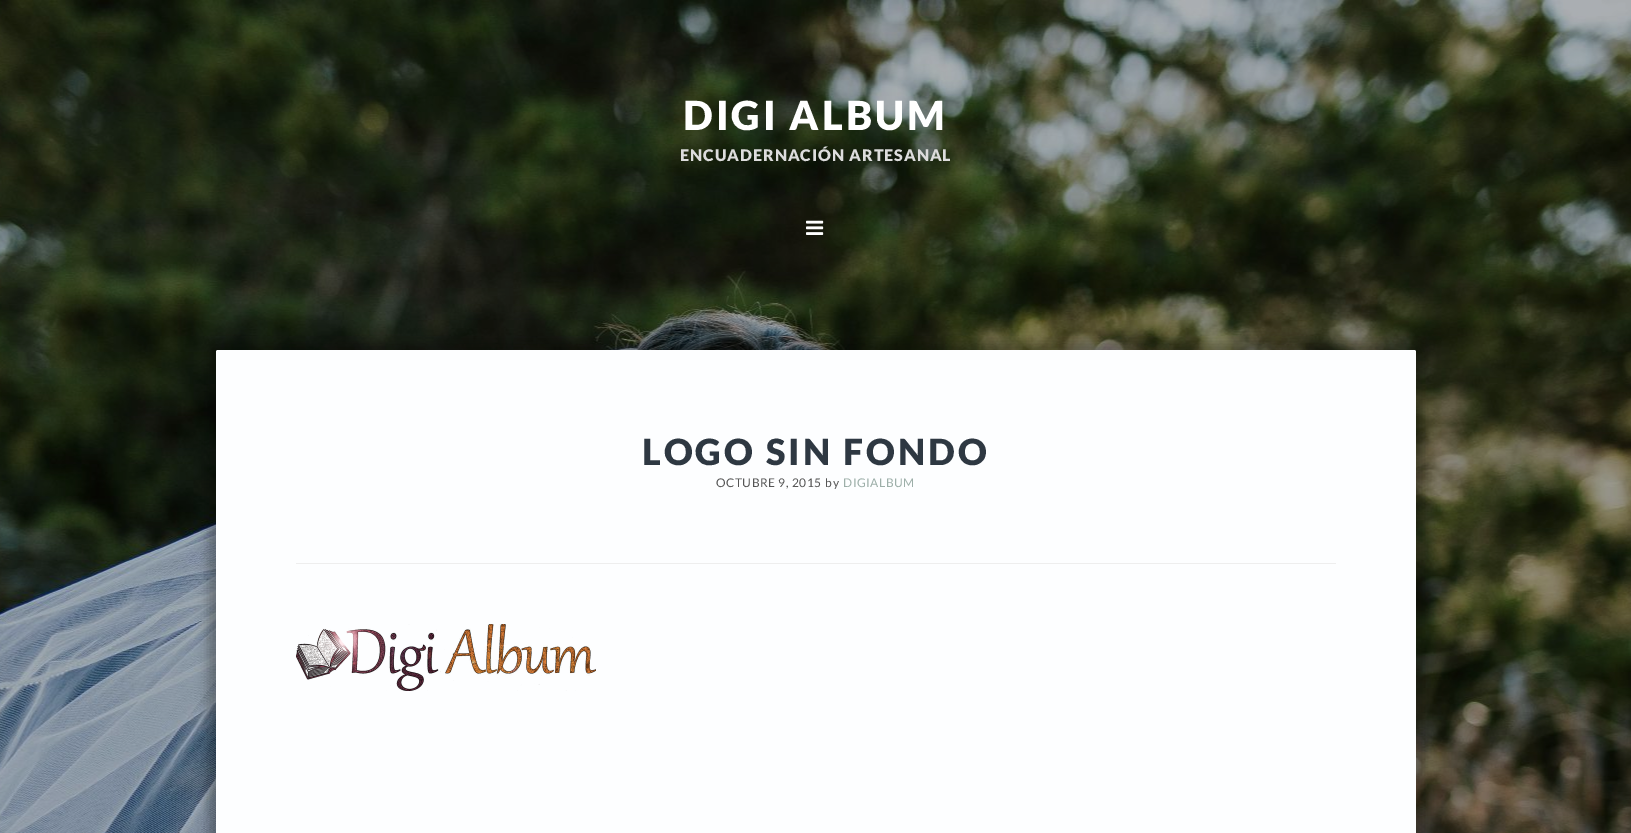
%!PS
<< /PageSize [1631 833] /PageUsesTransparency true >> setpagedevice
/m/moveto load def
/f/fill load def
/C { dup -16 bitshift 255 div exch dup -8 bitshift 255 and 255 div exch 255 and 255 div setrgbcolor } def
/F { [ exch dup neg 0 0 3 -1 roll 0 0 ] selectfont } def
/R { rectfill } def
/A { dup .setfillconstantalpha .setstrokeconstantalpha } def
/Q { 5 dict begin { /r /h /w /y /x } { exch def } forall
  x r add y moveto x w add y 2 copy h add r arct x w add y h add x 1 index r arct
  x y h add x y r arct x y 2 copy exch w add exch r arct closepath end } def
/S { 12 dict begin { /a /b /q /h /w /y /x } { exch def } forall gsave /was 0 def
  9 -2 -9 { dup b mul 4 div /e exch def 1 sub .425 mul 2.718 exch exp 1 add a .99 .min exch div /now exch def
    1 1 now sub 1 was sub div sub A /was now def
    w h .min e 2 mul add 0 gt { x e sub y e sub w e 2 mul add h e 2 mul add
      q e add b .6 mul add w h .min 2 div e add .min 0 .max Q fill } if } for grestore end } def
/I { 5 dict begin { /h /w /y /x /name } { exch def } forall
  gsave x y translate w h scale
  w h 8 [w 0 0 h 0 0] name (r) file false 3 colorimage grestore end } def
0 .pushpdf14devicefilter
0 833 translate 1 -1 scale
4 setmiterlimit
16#FFFFFF C
0 0 1631 833 R
(1.rgb) 0 0 1631 833 I
/Lato-Black 40 F
683 130 m 3 0 (DIGI ALBUM) ashow
/Lato-Black 16 F
16#DDDDDD C
680 161 m 1 0 (ENCUADERNACIÓN ARTESANAL) ashow
(2.rgb) 806 220 18 15 I
16#000000 C
208 342 1216 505 10 6 .3 S
16#FDFEFF C
216 350 1200 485 2 Q f
/Lato-Black 36 F
16#2E3842 C
642 465 m 3 0 (LOGO SIN FONDO) ashow
16#EEEEEE C
296 563 1040 1 R
/Lato-Regular 12 F
16#555555 C
716 487 m .5 0 (OCTUBRE 9, 2015) ashow
825 487 m 1 0 (by) ashow
16#9DAFA9 C
843 487 m .5 0 (DIGIALBUM) ashow
(3.rgb) 296 624 300 67 I
.poppdf14devicefilter showpage
